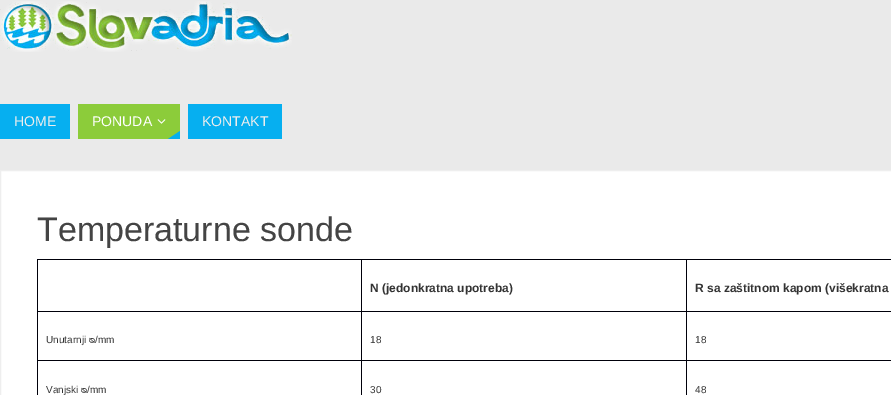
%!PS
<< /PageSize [891 395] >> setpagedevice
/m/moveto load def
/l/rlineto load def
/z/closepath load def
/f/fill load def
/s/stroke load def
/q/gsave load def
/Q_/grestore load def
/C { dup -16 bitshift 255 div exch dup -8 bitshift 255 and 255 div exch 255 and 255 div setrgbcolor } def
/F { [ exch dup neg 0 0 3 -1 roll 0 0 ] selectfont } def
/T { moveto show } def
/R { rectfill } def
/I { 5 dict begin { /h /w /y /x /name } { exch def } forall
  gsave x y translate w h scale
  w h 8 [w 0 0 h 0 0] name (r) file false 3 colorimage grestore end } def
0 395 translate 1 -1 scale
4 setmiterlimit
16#EAEAEA C
0 0 891 395 R
(1.rgb) 0 1 292 51 I
16#06AFF0 C
0 104 70 35 R
/LiberationSans-Regular 14 F
16#EEEEEE C
(HOME) 14 126 T
16#8CCC3A C
78 104 102 35 R
16#FFFFFF C
(PONUDA) 92 126 T
(2.rgb) 157 119 9 5 I
16#06AFF0 C
180 139 m -12 0 l 12 -8 l z f
188 104 94 35 R
16#EEEEEE C
(KONTAKT) 202 126 T
16#FFFFFF C
.5 170.5 m 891 0 l 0 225 l -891 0 l z q f Q_
16#EEEEEE C
s
/LiberationSans-Regular 34 F
16#444444 C
(Temperaturne sonde) 37 241 T
16#00000A C
686 259 205 1 R
686 311 205 1 R
686 360 205 1 R
686 360 1 35 R
361 360 326 1 R
686 311 1 50 R
361 311 326 1 R
686 259 1 53 R
361 259 326 1 R
361 360 1 35 R
37 360 325 1 R
361 311 1 50 R
37 311 325 1 R
361 259 1 53 R
37 259 325 1 R
37 360 1 35 R
37 311 1 50 R
37 259 1 53 R
/LiberationSans-Bold 12 F
16#333333 C
(N \(jedonkratna upotreba\)) 370 292 T
(R sa zaštitnom kapom \(višekratna) 695 292 T
/LiberationSans-Regular 10 F
(Unutarnji ᴓ/mm) 46 343 T
(18) 370 343 T
(18) 695 343 T
(Vanjski ᴓ/mm) 46 393 T
(30) 370 393 T
(48) 695 393 T
showpage
